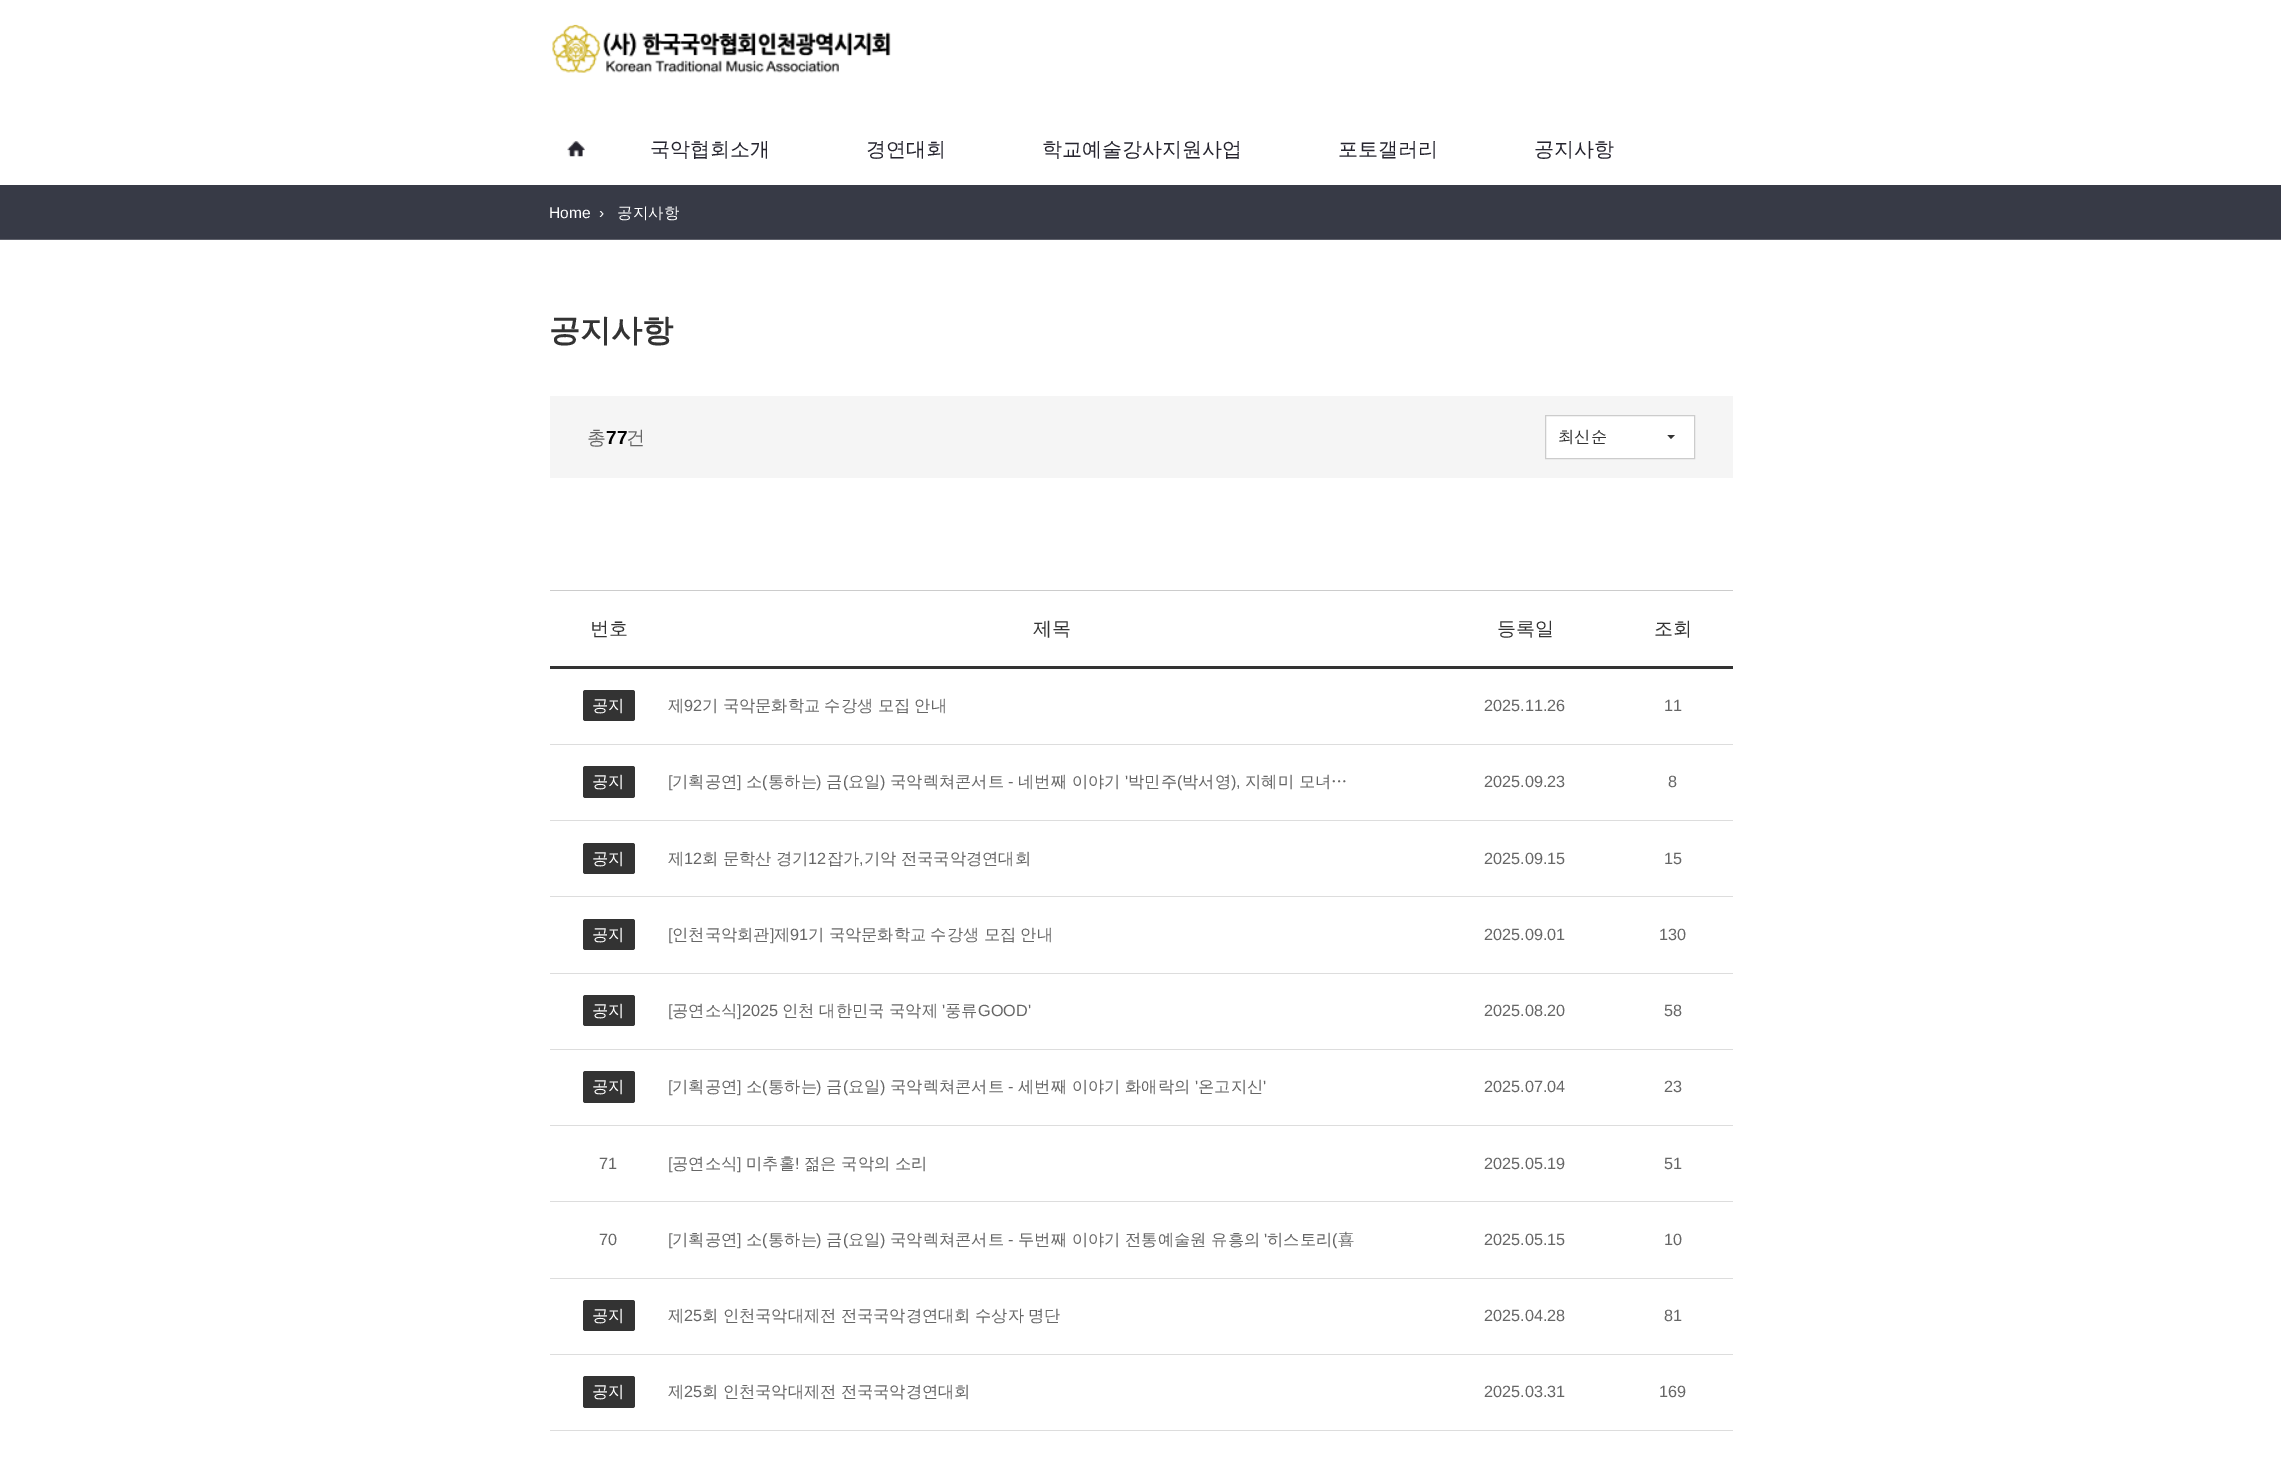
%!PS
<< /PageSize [2281 1459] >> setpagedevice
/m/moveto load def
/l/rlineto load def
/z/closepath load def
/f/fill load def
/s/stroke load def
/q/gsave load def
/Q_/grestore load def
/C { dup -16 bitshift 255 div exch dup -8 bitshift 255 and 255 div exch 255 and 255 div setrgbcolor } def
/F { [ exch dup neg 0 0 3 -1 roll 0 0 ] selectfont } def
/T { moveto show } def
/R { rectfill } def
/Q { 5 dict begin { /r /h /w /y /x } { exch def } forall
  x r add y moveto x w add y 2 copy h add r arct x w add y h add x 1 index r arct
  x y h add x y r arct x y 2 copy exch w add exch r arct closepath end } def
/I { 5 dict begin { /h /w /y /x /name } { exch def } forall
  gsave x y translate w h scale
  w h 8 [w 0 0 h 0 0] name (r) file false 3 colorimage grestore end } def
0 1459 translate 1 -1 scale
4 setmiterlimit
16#FFFFFF C
0 0 2281 1459 R
(1.rgb) 552 24 339 49 I
(2.rgb) 567 141 18 16 I
/WenQuanYiZenHei-Medium 20 F
16#25242E C
(국악협회소개) 650 156 T
(경연대회) 866 156 T
(학교예술강사지원사업) 1042 156 T
(포토갤러리) 1338 156 T
(공지사항) 1534 156 T
16#373A46 C
0 185 2281 54 R
16#5F616B C
0 239 2281 1 R
/LiberationSans-Regular 15.5 F
16#FFFFFF C
(Home) 549 218 T
(›) 599 218 T
/WenQuanYiZenHei-Medium 15.5 F
(공지사항) 617 218 T
/WenQuanYiZenHei-Bold 31 F
16#333333 C
(공지사항) 549 341 T
16#F5F5F5 C
550 396 1183 82 R
/WenQuanYiZenHei-Medium 19 F
16#666666 C
(총) 587 444 T
/LiberationSans-Bold 19 F
16#000000 C
(77) 606 444 T
/WenQuanYiZenHei-Medium 19 F
16#666666 C
(건) 626 444 T
16#FFFFFF C
1545.5 415.5 m 149 0 l 0 43 l -149 0 l z q f Q_
16#CCCCCC C
s
/WenQuanYiZenHei-Medium 16.25 F
16#333333 C
(최신순) 1558 442 T
1667.5 435 m 7.5 0 l -4 4 l z f
16#CCCCCC C
550 590 1183 1 R
16#333333 C
550 666 1183 3 R
/WenQuanYiZenHei-Medium 19 F
(번호) 590 635 T
(제목) 1033 635 T
(등록일) 1497 635 T
(조회) 1654 635 T
16#DDDDDD C
550 744 1183 1 R
16#333333 C
583 690 52 31 2.5 Q f
/WenQuanYiZenHei-Medium 16.25 F
16#FFFFFF C
(공지) 592 711 T
16#666666 C
(제) 668 711 T
/LiberationSans-Regular 16.25 F
(92) 684 711 T
/WenQuanYiZenHei-Medium 16.25 F
702 711 m -.5 0 32 (기 국악문화학교 수강생 모집 안내) widthshow
/LiberationSans-Regular 16.25 F
(2025.11.26) 1484 711 T
(11) 1664 711 T
16#DDDDDD C
550 820 1183 1 R
16#333333 C
583 766 52 32 2.5 Q f
/WenQuanYiZenHei-Medium 16.25 F
16#FFFFFF C
(공지) 592 787 T
/LiberationSans-Regular 16.25 F
16#666666 C
([) 668 787 T
/WenQuanYiZenHei-Medium 16.25 F
(기획공연) 672 787 T
/LiberationSans-Regular 16.25 F
(]) 737 787 T
/WenQuanYiZenHei-Medium 16.25 F
(소) 746 787 T
/LiberationSans-Regular 16.25 F
(\() 762 787 T
/WenQuanYiZenHei-Medium 16.25 F
(통하는) 768 787 T
/LiberationSans-Regular 16.25 F
(\)) 816 787 T
/WenQuanYiZenHei-Medium 16.25 F
(금) 826 787 T
/LiberationSans-Regular 16.25 F
(\() 843 787 T
/WenQuanYiZenHei-Medium 16.25 F
(요일) 848 787 T
/LiberationSans-Regular 16.25 F
(\)) 880 787 T
/WenQuanYiZenHei-Medium 16.25 F
(국악렉쳐콘서트) 890 787 T
/LiberationSans-Regular 16.25 F
(-) 1008 787 T
/WenQuanYiZenHei-Medium 16.25 F
(네번째 이야기) 1018 787 T
/LiberationSans-Regular 16.25 F
(') 1125 787 T
/WenQuanYiZenHei-Medium 16.25 F
(박민주) 1128 787 T
/LiberationSans-Regular 16.25 F
(\() 1177 787 T
/WenQuanYiZenHei-Medium 16.25 F
(박서영) 1182 787 T
/LiberationSans-Regular 16.25 F
(\),) 1231 787 T
/WenQuanYiZenHei-Medium 16.25 F
(지혜미 모녀…) 1245 787 T
/LiberationSans-Regular 16.25 F
(2025.09.23) 1484 787 T
(8) 1668 787 T
16#DDDDDD C
550 896 1183 1 R
16#333333 C
583 843 52 31 2.5 Q f
/WenQuanYiZenHei-Medium 16.25 F
16#FFFFFF C
(공지) 592 864 T
16#666666 C
(제) 668 864 T
/LiberationSans-Regular 16.25 F
(12) 684 864 T
/WenQuanYiZenHei-Medium 16.25 F
702 864 m -.5 0 32 (회 문학산 경기) widthshow
/LiberationSans-Regular 16.25 F
(12) 808 864 T
/WenQuanYiZenHei-Medium 16.25 F
(잡가) 827 864 T
864 864 m -.5 0 32 (기악 전국국악경연대회) widthshow
/LiberationSans-Regular 16.25 F
(,) 859 864 T
(2025.09.15) 1484 864 T
(15) 1664 864 T
16#DDDDDD C
550 973 1183 1 R
16#333333 C
583 919 52 31 2.5 Q f
/WenQuanYiZenHei-Medium 16.25 F
16#FFFFFF C
(공지) 592 940 T
/LiberationSans-Regular 16.25 F
16#666666 C
([) 668 940 T
/WenQuanYiZenHei-Medium 16.25 F
(인천국악회관) 672 940 T
/LiberationSans-Regular 16.25 F
(]) 770 940 T
/WenQuanYiZenHei-Medium 16.25 F
(제) 774 940 T
/LiberationSans-Regular 16.25 F
(91) 790 940 T
/WenQuanYiZenHei-Medium 16.25 F
808 940 m -.5 0 32 (기 국악문화학교 수강생 모집 안내) widthshow
/LiberationSans-Regular 16.25 F
(2025.09.01) 1484 940 T
(130) 1659 940 T
16#DDDDDD C
550 1049 1183 1 R
16#333333 C
583 995 52 31 2.5 Q f
/WenQuanYiZenHei-Medium 16.25 F
16#FFFFFF C
(공지) 592 1016 T
/LiberationSans-Regular 16.25 F
16#666666 C
([) 668 1016 T
/WenQuanYiZenHei-Medium 16.25 F
(공연소식) 672 1016 T
/LiberationSans-Regular 16.25 F
(]2025) 737 1016 T
/WenQuanYiZenHei-Medium 16.25 F
(인천 대한민국 국악제) 782 1016 T
/LiberationSans-Regular 16.25 F
(') 942 1016 T
/WenQuanYiZenHei-Medium 16.25 F
(풍류) 945 1016 T
/LiberationSans-Regular 16.25 F
(GOOD') 978 1016 T
(2025.08.20) 1484 1016 T
(58) 1664 1016 T
16#DDDDDD C
550 1125 1183 1 R
16#333333 C
583 1071 52 32 2.5 Q f
/WenQuanYiZenHei-Medium 16.25 F
16#FFFFFF C
(공지) 592 1092 T
/LiberationSans-Regular 16.25 F
16#666666 C
([) 668 1092 T
/WenQuanYiZenHei-Medium 16.25 F
(기획공연) 672 1092 T
/LiberationSans-Regular 16.25 F
(]) 737 1092 T
/WenQuanYiZenHei-Medium 16.25 F
(소) 746 1092 T
/LiberationSans-Regular 16.25 F
(\() 762 1092 T
/WenQuanYiZenHei-Medium 16.25 F
(통하는) 768 1092 T
/LiberationSans-Regular 16.25 F
(\)) 816 1092 T
/WenQuanYiZenHei-Medium 16.25 F
(금) 826 1092 T
/LiberationSans-Regular 16.25 F
(\() 843 1092 T
/WenQuanYiZenHei-Medium 16.25 F
(요일) 848 1092 T
/LiberationSans-Regular 16.25 F
(\)) 880 1092 T
/WenQuanYiZenHei-Medium 16.25 F
(국악렉쳐콘서트) 890 1092 T
(세번째 이야기 화애락의) 1018 1092 T
/LiberationSans-Regular 16.25 F
(') 1195 1092 T
/WenQuanYiZenHei-Medium 16.25 F
(온고지신) 1198 1092 T
/LiberationSans-Regular 16.25 F
(') 1263 1092 T
(-) 1008 1092 T
(2025.07.04) 1484 1092 T
(23) 1664 1092 T
16#DDDDDD C
550 1201 1183 1 R
16#666666 C
(71) 599 1169 T
([) 668 1169 T
/WenQuanYiZenHei-Medium 16.25 F
(공연소식) 672 1169 T
/LiberationSans-Regular 16.25 F
(]) 737 1169 T
/WenQuanYiZenHei-Medium 16.25 F
(미추홀) 746 1169 T
/LiberationSans-Regular 16.25 F
(!) 795 1169 T
/WenQuanYiZenHei-Medium 16.25 F
(젊은 국악의 소리) 804 1169 T
/LiberationSans-Regular 16.25 F
(2025.05.19) 1484 1169 T
(51) 1664 1169 T
16#DDDDDD C
550 1278 1183 1 R
16#666666 C
(70) 599 1245 T
([) 668 1245 T
/WenQuanYiZenHei-Medium 16.25 F
(기획공연) 672 1245 T
/LiberationSans-Regular 16.25 F
(]) 737 1245 T
/WenQuanYiZenHei-Medium 16.25 F
(소) 746 1245 T
/LiberationSans-Regular 16.25 F
(\() 762 1245 T
/WenQuanYiZenHei-Medium 16.25 F
(통하는) 768 1245 T
/LiberationSans-Regular 16.25 F
(\)) 816 1245 T
/WenQuanYiZenHei-Medium 16.25 F
(금) 826 1245 T
/LiberationSans-Regular 16.25 F
(\() 843 1245 T
/WenQuanYiZenHei-Medium 16.25 F
(요일) 848 1245 T
/LiberationSans-Regular 16.25 F
(\)) 880 1245 T
/WenQuanYiZenHei-Medium 16.25 F
(국악렉쳐콘서트) 890 1245 T
/LiberationSans-Regular 16.25 F
(-) 1008 1245 T
/WenQuanYiZenHei-Medium 16.25 F
(두번째 이야기 전통예술원 유흥의) 1018 1245 T
/LiberationSans-Regular 16.25 F
(') 1264 1245 T
/WenQuanYiZenHei-Medium 16.25 F
(히스토리) 1267 1245 T
/LiberationSans-Regular 16.25 F
(\() 1332 1245 T
/WenQuanYiZenHei-Medium 16.25 F
(喜) 1338 1245 T
/LiberationSans-Regular 16.25 F
(2025.05.15) 1484 1245 T
(10) 1664 1245 T
16#DDDDDD C
550 1354 1183 1 R
16#333333 C
583 1300 52 31 2.5 Q f
/WenQuanYiZenHei-Medium 16.25 F
16#FFFFFF C
(공지) 592 1321 T
16#666666 C
(제) 668 1321 T
/LiberationSans-Regular 16.25 F
(25) 684 1321 T
/WenQuanYiZenHei-Medium 16.25 F
702 1321 m -.5 0 32 (회 인천국악대제전 전국국악경연대회 수상자 명단) widthshow
/LiberationSans-Regular 16.25 F
(2025.04.28) 1484 1321 T
(81) 1664 1321 T
16#DDDDDD C
550 1430 1183 1 R
16#333333 C
583 1376 52 32 2.5 Q f
/WenQuanYiZenHei-Medium 16.25 F
16#FFFFFF C
(공지) 592 1397 T
16#666666 C
(제) 668 1397 T
/LiberationSans-Regular 16.25 F
(25) 684 1397 T
/WenQuanYiZenHei-Medium 16.25 F
702 1397 m -.5 0 32 (회 인천국악대제전 전국국악경연대회) widthshow
/LiberationSans-Regular 16.25 F
(2025.03.31) 1484 1397 T
(169) 1659 1397 T
showpage
